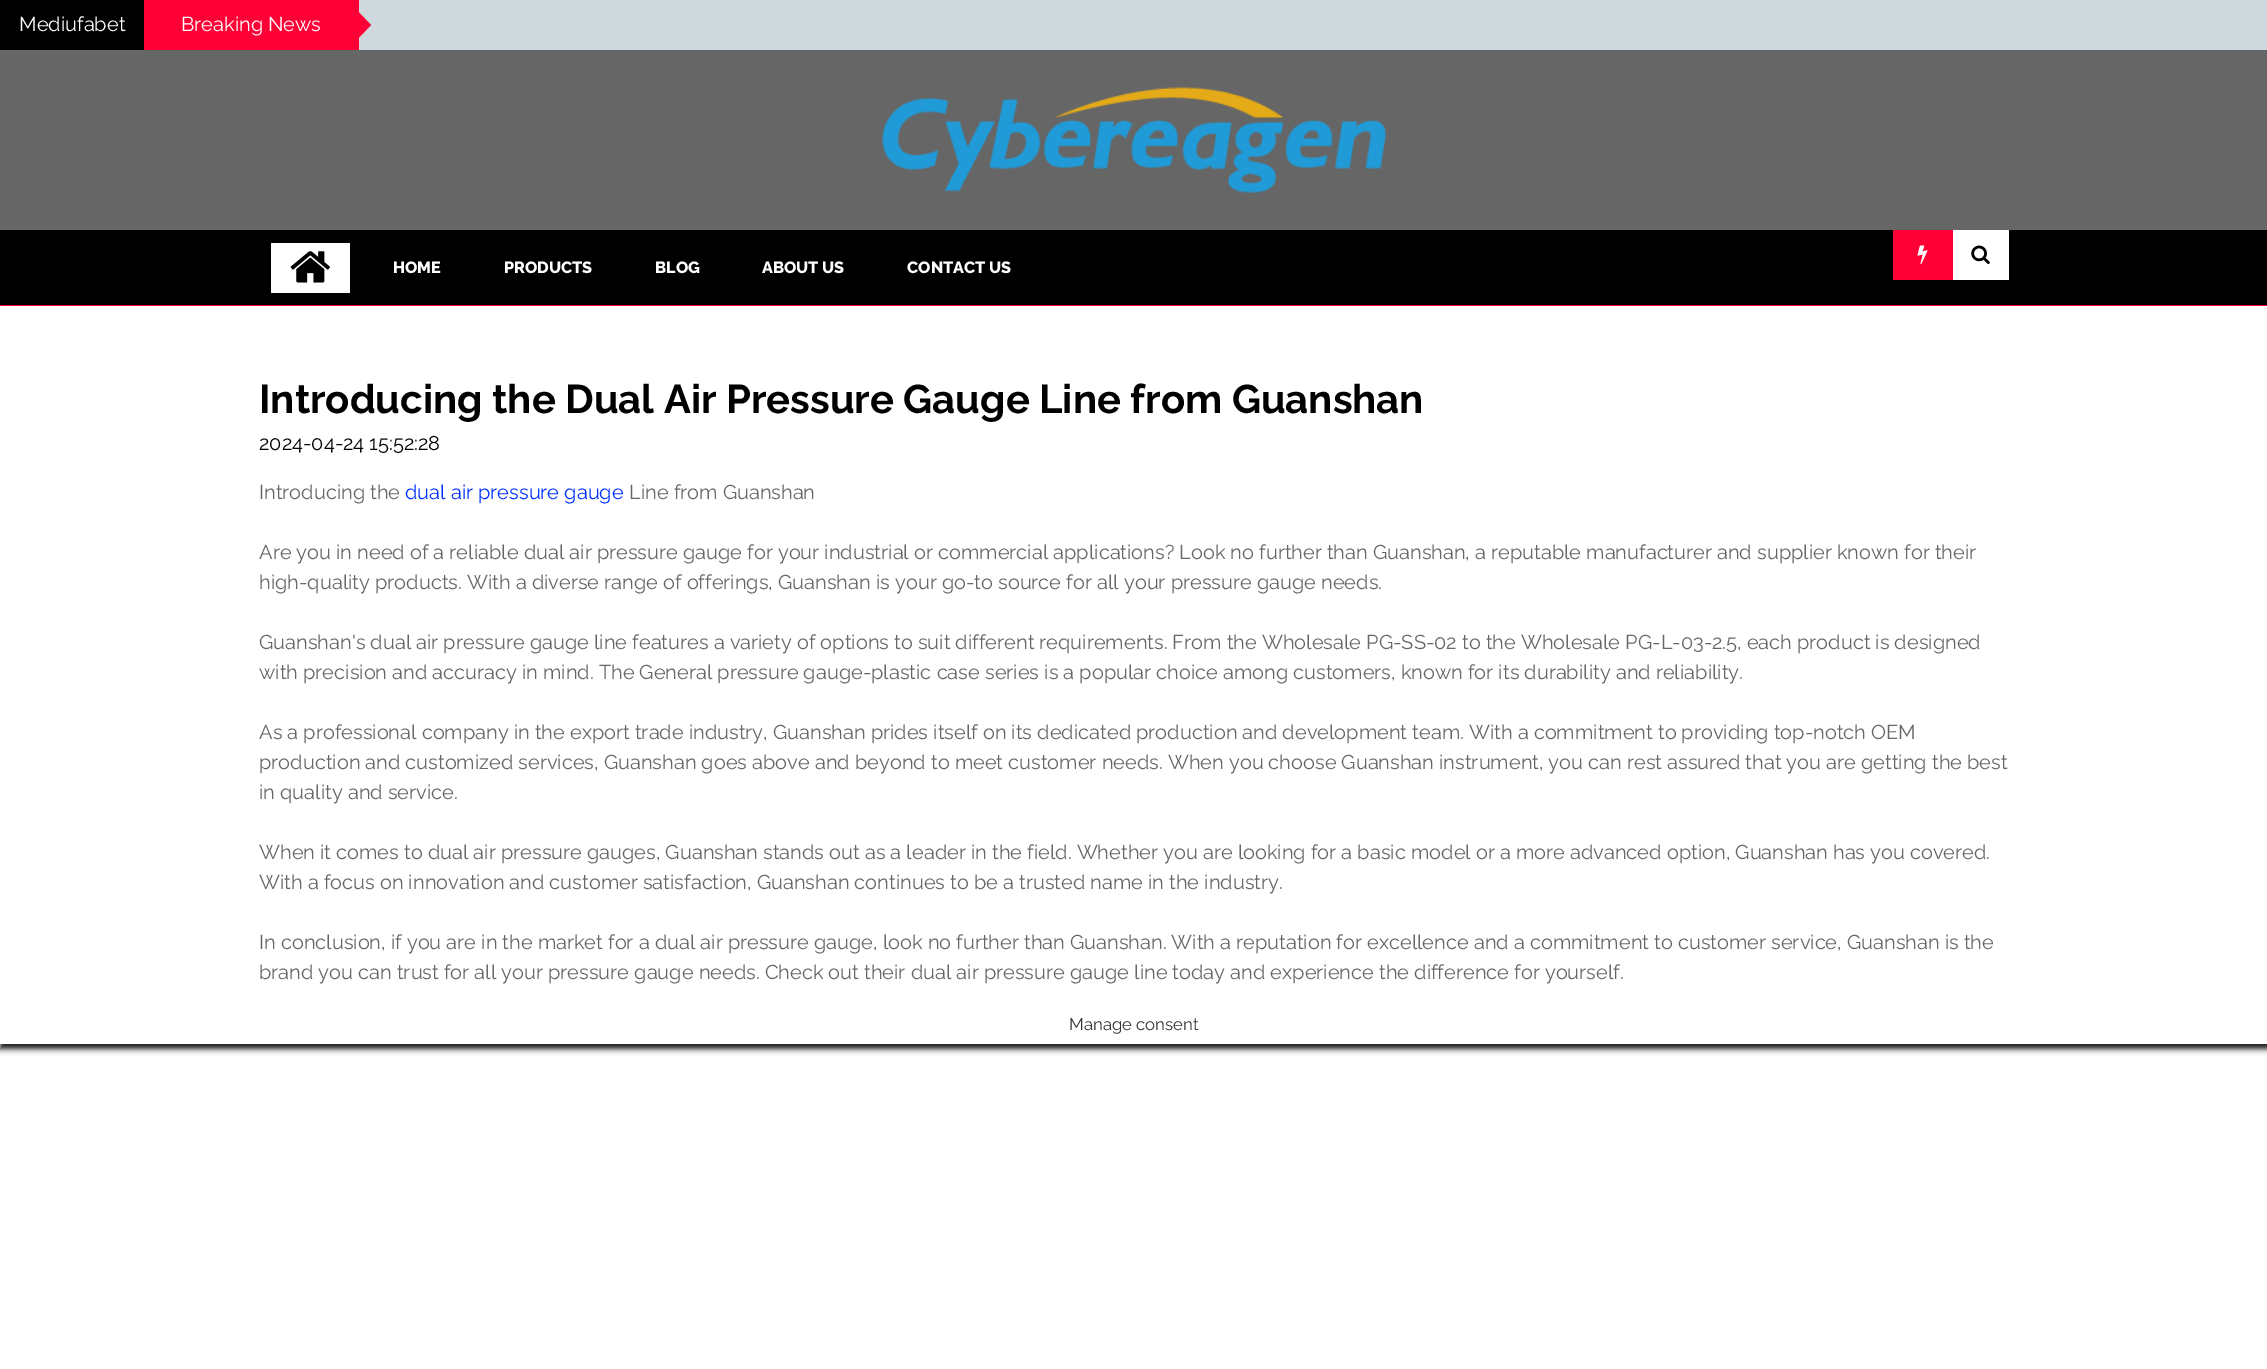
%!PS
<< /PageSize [2267 1369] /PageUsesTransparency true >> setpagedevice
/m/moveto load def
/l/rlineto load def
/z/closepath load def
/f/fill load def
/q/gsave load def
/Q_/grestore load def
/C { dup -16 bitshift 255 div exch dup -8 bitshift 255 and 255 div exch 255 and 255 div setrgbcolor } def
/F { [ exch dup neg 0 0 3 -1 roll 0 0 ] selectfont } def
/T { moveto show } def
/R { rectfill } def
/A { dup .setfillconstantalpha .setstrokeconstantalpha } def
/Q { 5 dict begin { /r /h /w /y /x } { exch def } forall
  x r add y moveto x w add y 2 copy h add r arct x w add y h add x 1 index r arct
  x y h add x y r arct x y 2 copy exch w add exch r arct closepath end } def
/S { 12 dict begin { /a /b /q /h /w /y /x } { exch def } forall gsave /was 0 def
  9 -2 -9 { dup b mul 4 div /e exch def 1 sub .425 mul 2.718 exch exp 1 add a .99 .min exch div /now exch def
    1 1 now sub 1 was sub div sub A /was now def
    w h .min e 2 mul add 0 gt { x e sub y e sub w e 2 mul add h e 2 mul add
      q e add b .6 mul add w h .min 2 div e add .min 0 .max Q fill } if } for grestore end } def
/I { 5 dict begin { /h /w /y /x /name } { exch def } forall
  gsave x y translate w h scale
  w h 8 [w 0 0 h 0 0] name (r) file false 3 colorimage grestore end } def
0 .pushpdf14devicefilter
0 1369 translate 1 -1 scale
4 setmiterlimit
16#FFFFFF C
0 0 2267 1369 R
16#CFD8DC C
359 0 1908 50 R
16#000000 C
0 0 144 50 R
/Raleway-Regular 20 F
16#FFFFFF C
(Mediufabet) 19 31 T
16#FF0036 C
144 0 215 50 R
16#FFFFFF C
(Breaking News) 181 31 T
16#FF0036 C
359 37.5 m 0 -25 l 12 12.5 l z f
16#666666 C
0 50 2267 180 R
(1.rgb) 882 87 505 106 I
16#000000 C
0 230 2267 75 R
16#FFFFFF C
271 243 79 50 R
(2.rgb) 290 251 40 32 I
/Raleway-ExtraBold 16.25 F
(HOME) 393 273 T
(PRODUCTS) 504 273 T
(BLOG) 655 273 T
(ABOUT US) 762 273 T
(CONTACT US) 907 273 T
16#FF0036 C
1893 230 60 50 R
(3.rgb) 1917 245 11 20 I
16#FFFFFF C
1953 230 56 50 R
(4.rgb) 1971 245 19 20 I
16#FF0036 C
0 305 2267 1 R
q
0 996 m 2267 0 l 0 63 l -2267 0 l z 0 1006 m 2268 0 l 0 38 l -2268 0 l z eoclip newpath
16#161616 C
0 1006 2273 43 0 3 1 S
Q_
16#FFFFFF C
0 999 2267 7 R
/Raleway-Bold 40 F
16#000000 C
(Introducing the Dual Air Pressure Gauge Line from Guanshan) 259 413 T
/Raleway-Regular 20 F
(2024-04-24 15:52:28) 259 450 T
16#666666 C
(Introducing the) 259 499 T
16#0030FF C
(dual air pressure gauge) 405 499 T
16#666666 C
(Line from Guanshan) 629 499 T
(Are you in need of a reliable dual air pressure gauge for your industrial or commercial applications? Look no further than Guanshan, a reputable manufacturer and supplier known for their) 259 559 T
(high-quality products. With a diverse range of offerings, Guanshan is your go-to source for all your pressure gauge needs.) 259 589 T
(Guanshan's dual air pressure gauge line features a variety of options to suit different requirements. From the Wholesale PG-SS-02 to the Wholesale PG-L-03-2.5, each product is designed) 259 649 T
(with precision and accuracy in mind. The General pressure gauge-plastic case series is a popular choice among customers, known for its durability and reliability.) 259 679 T
(As a professional company in the export trade industry, Guanshan prides itself on its dedicated production and development team. With a commitment to providing top-notch OEM) 259 739 T
(production and customized services, Guanshan goes above and beyond to meet customer needs. When you choose Guanshan instrument, you can rest assured that you are getting the best) 259 769 T
(in quality and service.) 259 799 T
(When it comes to dual air pressure gauges, Guanshan stands out as a leader in the field. Whether you are looking for a basic model or a more advanced option, Guanshan has you covered.) 259 859 T
(With a focus on innovation and customer satisfaction, Guanshan continues to be a trusted name in the industry.) 259 889 T
(In conclusion, if you are in the market for a dual air pressure gauge, look no further than Guanshan. With a reputation for excellence and a commitment to customer service, Guanshan is the) 259 949 T
(brand you can trust for all your pressure gauge needs. Check out their dual air pressure gauge line today and experience the difference for yourself.) 259 979 T
/Raleway-Regular 16.75 F
16#333333 C
(Manage consent) 1069 1030 T
.poppdf14devicefilter showpage
